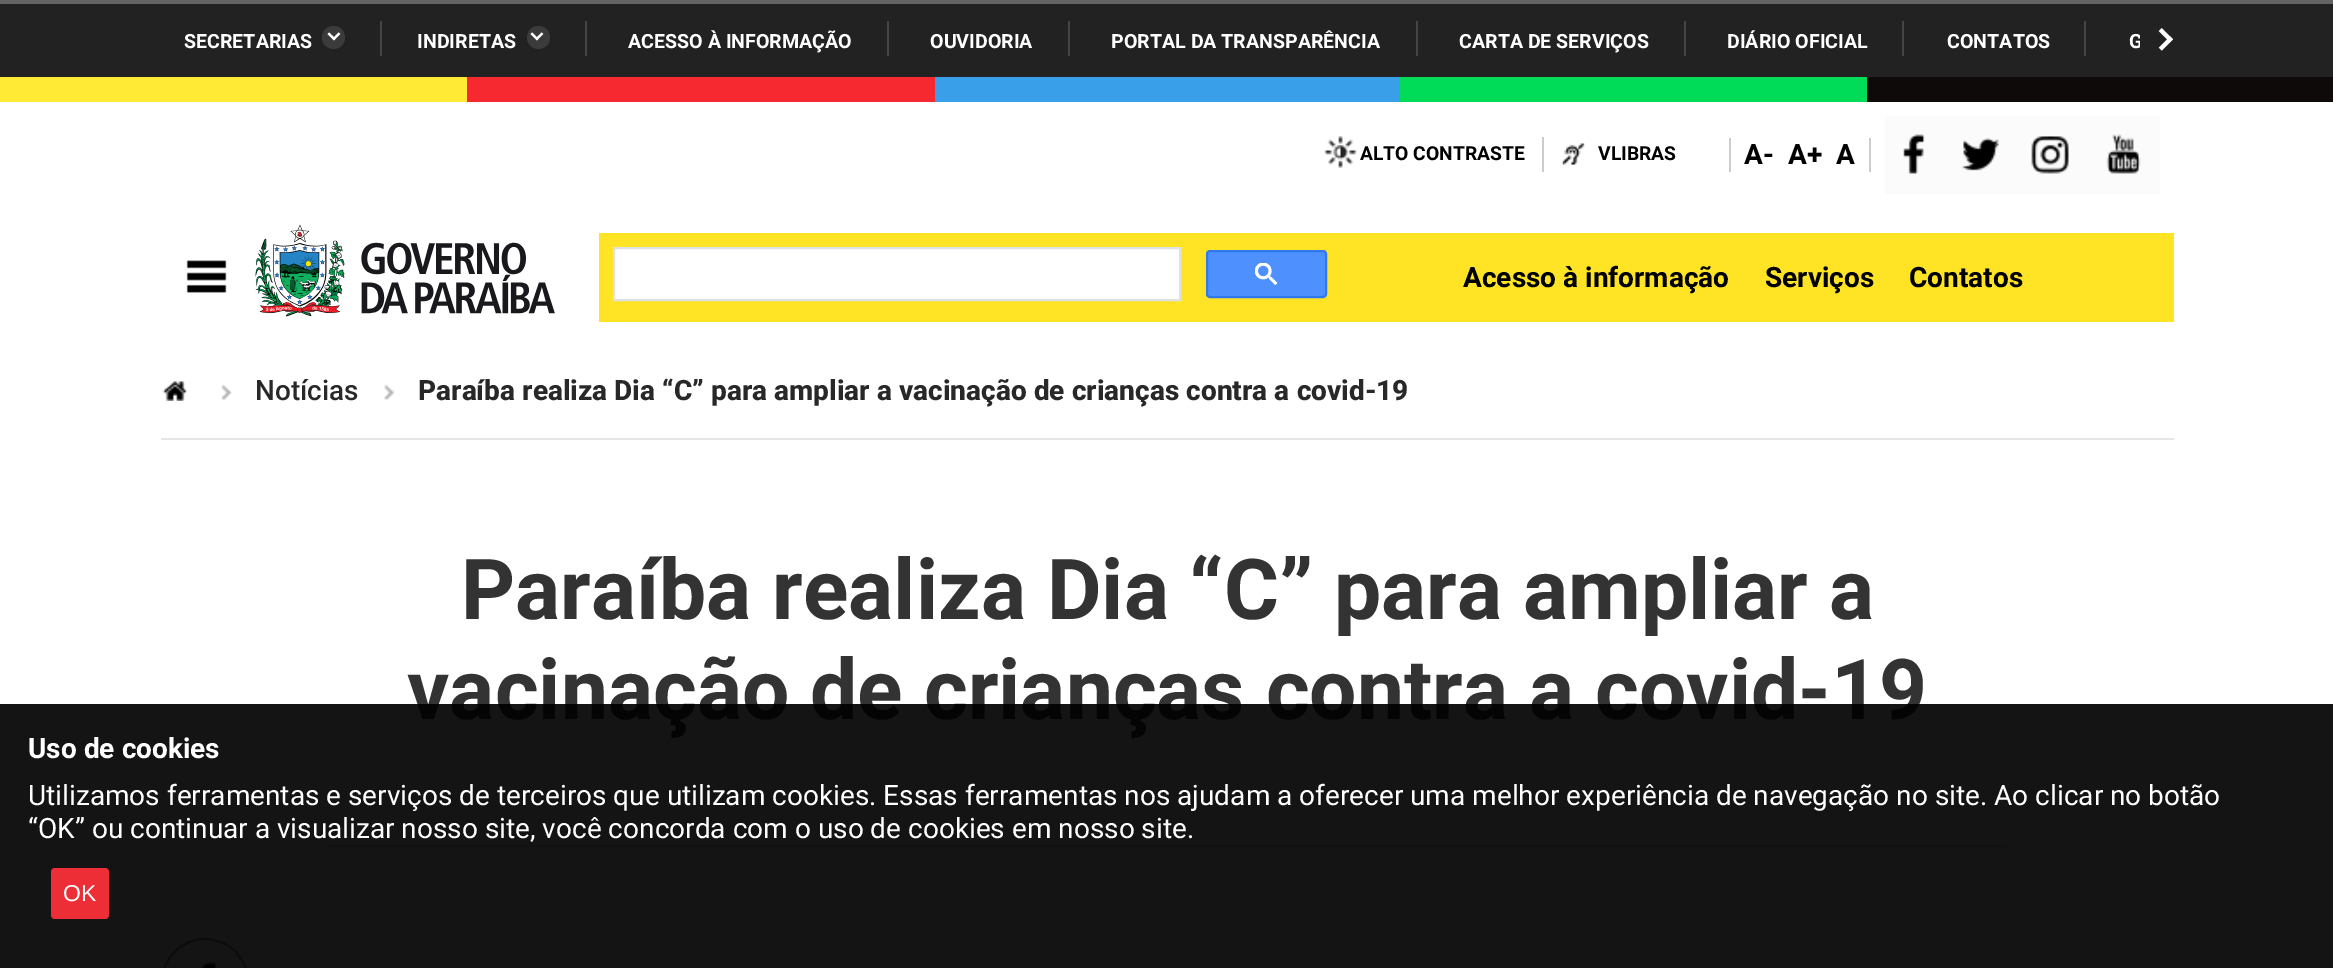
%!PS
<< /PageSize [2333 968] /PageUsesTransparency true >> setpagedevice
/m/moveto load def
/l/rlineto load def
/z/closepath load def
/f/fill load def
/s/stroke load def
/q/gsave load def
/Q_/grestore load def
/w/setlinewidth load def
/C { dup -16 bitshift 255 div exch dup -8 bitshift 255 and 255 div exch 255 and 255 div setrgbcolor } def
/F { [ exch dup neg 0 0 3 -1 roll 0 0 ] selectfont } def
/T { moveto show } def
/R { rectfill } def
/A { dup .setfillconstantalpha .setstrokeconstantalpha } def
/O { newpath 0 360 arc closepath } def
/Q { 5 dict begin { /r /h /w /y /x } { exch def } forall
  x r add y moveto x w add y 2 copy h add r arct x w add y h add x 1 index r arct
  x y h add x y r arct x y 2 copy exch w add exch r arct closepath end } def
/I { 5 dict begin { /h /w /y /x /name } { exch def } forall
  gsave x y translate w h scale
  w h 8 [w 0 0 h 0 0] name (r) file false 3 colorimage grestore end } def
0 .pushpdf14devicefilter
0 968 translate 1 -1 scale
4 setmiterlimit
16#FFFFFF C
0 0 2333 968 R
16#222222 C
0 4 2333 73 R
16#646464 C
0 0 2333 4 R
/Roboto-Bold 19.6 F
16#FFFFFF C
(SECRETARIAS) 184 48 T
16#3B3B3B C
333.5 37.5 11.5 O f
(1.rgb) 327 32 14 9 I
16#454545 C
380 21 2 35 R
16#FFFFFF C
(INDIRETAS) 417 48 T
16#3B3B3B C
538.5 37.5 11.5 O f
(1.rgb) 530 32 14 9 I
16#454545 C
585 21 2 35 R
16#FFFFFF C
(ACESSO À INFORMAÇÃO) 628 48 T
16#454545 C
887 21 2 35 R
16#FFFFFF C
(OUVIDORIA) 930 48 T
16#454545 C
1068 21 2 35 R
16#FFFFFF C
(PORTAL DA TRANSPARÊNCIA) 1111 48 T
16#454545 C
1416 21 2 35 R
16#FFFFFF C
(CARTA DE SERVIÇOS) 1459 48 T
16#454545 C
1684 21 2 35 R
16#FFFFFF C
(DIÁRIO OFICIAL) 1727 48 T
16#454545 C
1902 21 2 35 R
16#FFFFFF C
(CONTATOS) 1947 48 T
16#454545 C
2084 21 2 35 R
q
161 21 1979 35 rectclip
16#FFFFFF C
(G) 2129 48 T
Q_
(2.rgb) 2158 28 16 23 I
16#FFEB36 C
0 77 467 25 R
16#F72930 C
467 77 468 25 R
16#399FE8 C
935 77 465 25 R
16#00DC58 C
1400 77 467 25 R
16#0F0A0A C
1867 77 466 25 R
16#CCCCCC C
1542 137 2 35 R
(3.rgb) 1324 136 33 32 I
/Roboto-Bold 19.25 F
16#000000 C
(ALTO CONTRASTE) 1360 160 T
(4.rgb) 1562 143 23 22 I
(VLIBRAS) 1598 160 T
16#CCCCCC C
1869 138 2 34 R
1729 138 2 34 R
/Roboto-Bold 28 F
16#000000 C
(A-) 1744 164 T
(A+) 1788 164 T
(A) 1836 164 T
16#FBFBFB C
1885 116 275 78 R
(5.rgb) 1903 134 22 40 I
(6.rgb) 1961 138 38 33 I
(7.rgb) 2031 136 38 38 I
(8.rgb) 2106 134 35 40 I
(9.rgb) 186 260 41 33 I
(10.rgb) 255 224 300 93 I
16#FFE425 C
599 233 1575 89 R
16#FFFFFF C
614 248 m 566 0 l 0 52 l -566 0 l z q f Q_
16#DFE1E5 C
2 w
s
16#4D90FE C
1207 251 119 46 3 Q q f Q_
16#3079ED C
s
(11.rgb) 1255 263 23 22 I
16#000000 C
(Acesso à informação) 1463 287 T
(Serviços) 1765 287 T
(Contatos) 1909 287 T
16#E6E6E6 C
161 438 2013 2 R
(12.rgb) 162 381 26 20 I
(13.rgb) 221 384 11 16 I
/Roboto-Medium 28 F
16#282828 C
(Notícias) 255 400 T
(14.rgb) 384 384 11 16 I
/Roboto-ExtraBold 28 F
418 400 m .25 0 32 (Paraíba realiza Dia “C” para ampliar a vacinação de crianças contra a covid-19) widthshow
/Roboto-Bold 84 F
16#333333 C
(Paraíba realiza Dia “C” para ampliar a) 461 619 T
(vacinação de crianças contra a covid-19) 407 719 T
16#E6E6E6 C
327 845 1680 2 R
16#979797 C
162 939 86 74 43 Q s
(15.rgb) 201 962 16 6 I
0.92 A
16#000000 C
0 704 2333 264 R
/Roboto-Bold 28 F
1 A
16#FFFFFF C
(Uso de cookies) 28 758 T
/Roboto-Regular 28 F
(Utilizamos ferramentas e serviços de terceiros que utilizam cookies. Essas ferramentas nos ajudam a oferecer uma melhor experiência de navegação no site. Ao clicar no botão) 28 805 T
(“OK” ou continuar a visualizar nosso site, você concorda com o uso de cookies em nosso site.) 28 838 T
16#EE2E36 C
51 868 58 51 4 Q f
/LiberationSans-Regular 23 F
16#FFFFFF C
(OK) 63 901 T
.poppdf14devicefilter showpage
